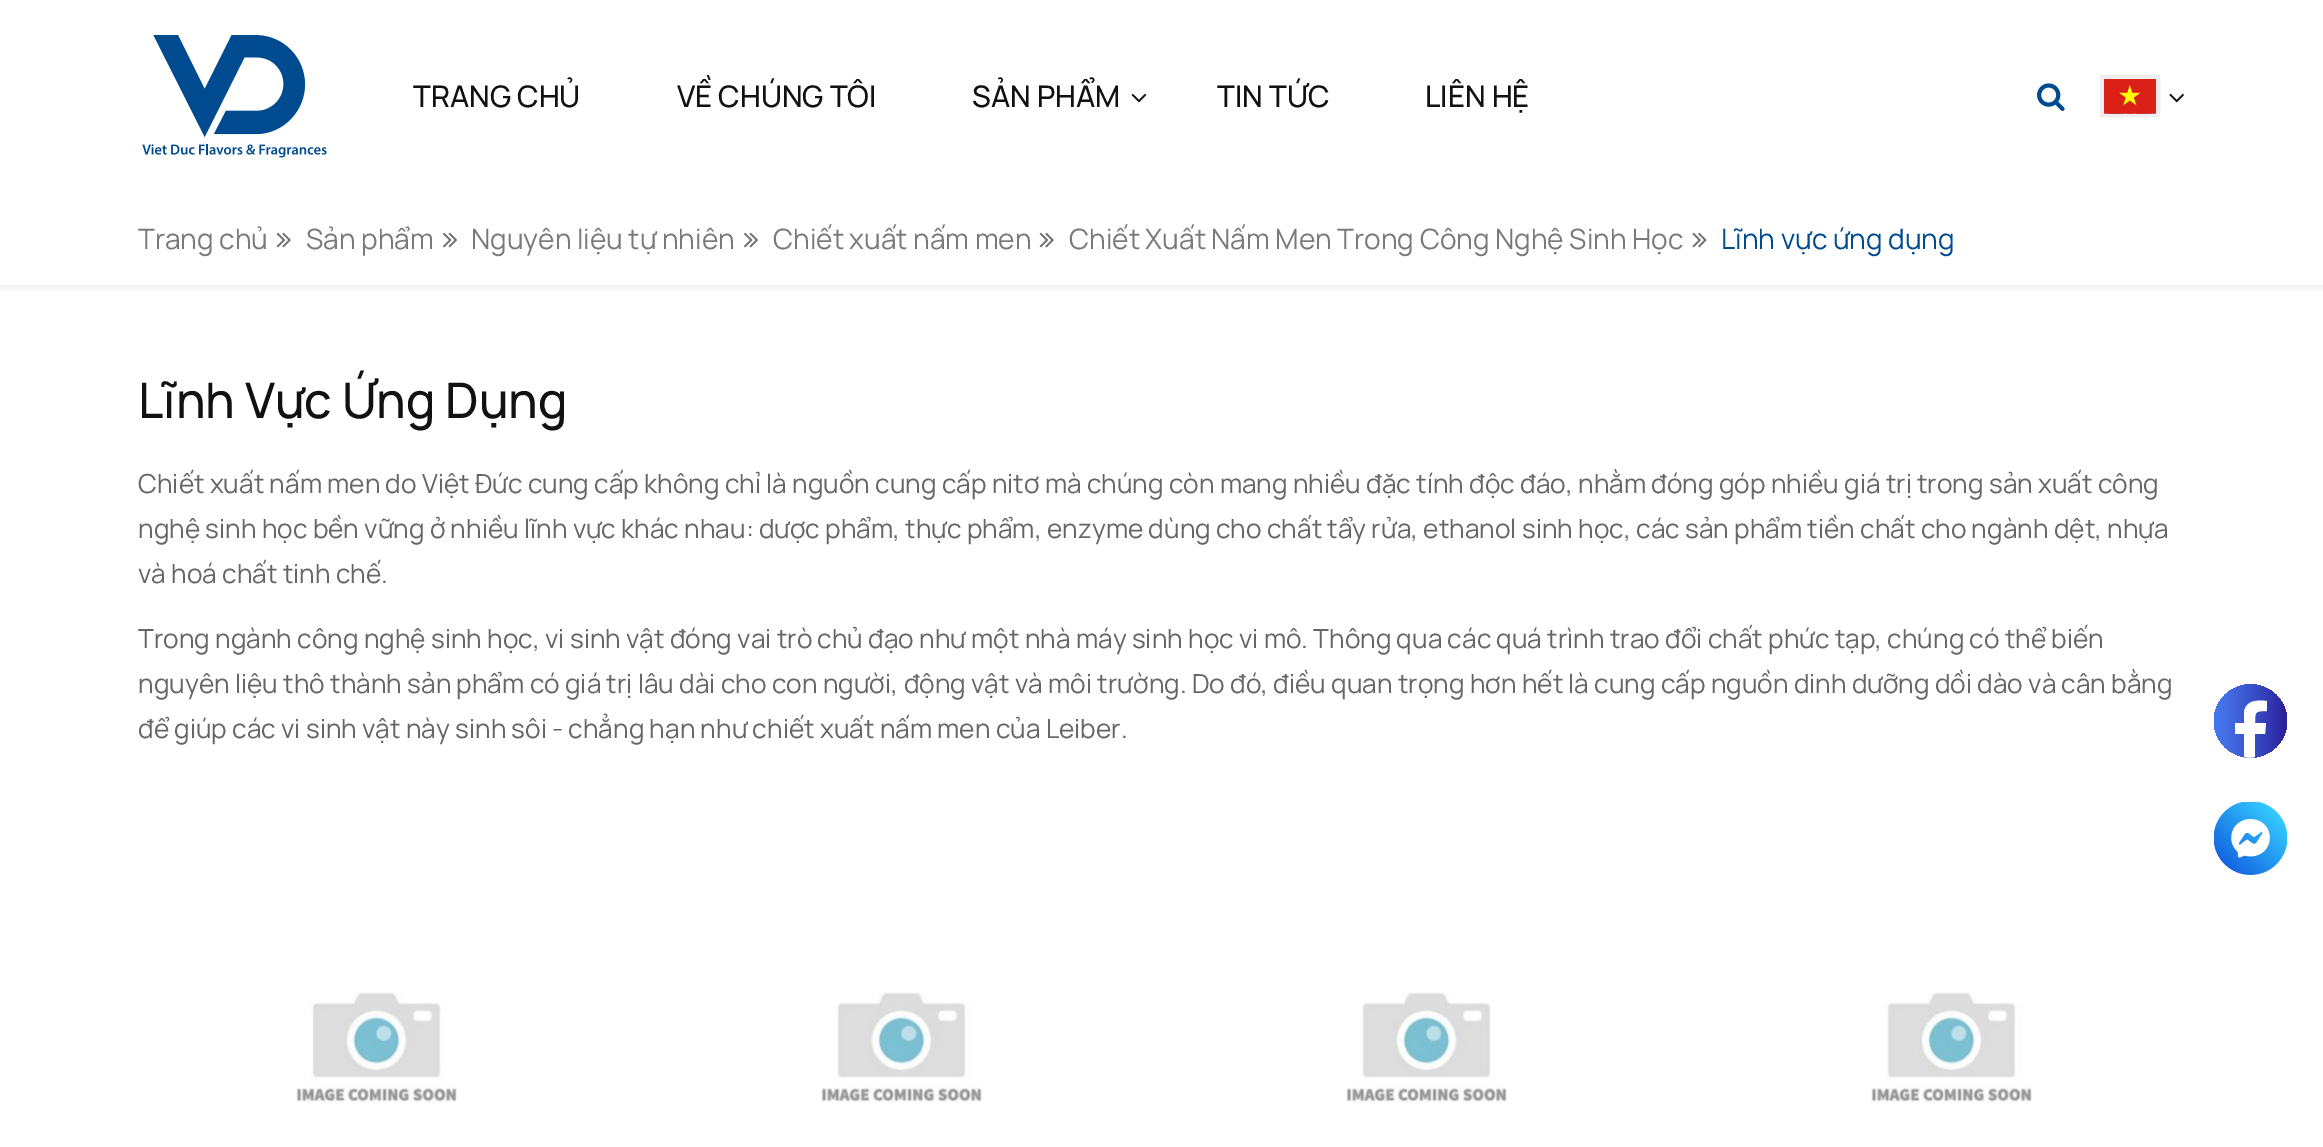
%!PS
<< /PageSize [2323 1147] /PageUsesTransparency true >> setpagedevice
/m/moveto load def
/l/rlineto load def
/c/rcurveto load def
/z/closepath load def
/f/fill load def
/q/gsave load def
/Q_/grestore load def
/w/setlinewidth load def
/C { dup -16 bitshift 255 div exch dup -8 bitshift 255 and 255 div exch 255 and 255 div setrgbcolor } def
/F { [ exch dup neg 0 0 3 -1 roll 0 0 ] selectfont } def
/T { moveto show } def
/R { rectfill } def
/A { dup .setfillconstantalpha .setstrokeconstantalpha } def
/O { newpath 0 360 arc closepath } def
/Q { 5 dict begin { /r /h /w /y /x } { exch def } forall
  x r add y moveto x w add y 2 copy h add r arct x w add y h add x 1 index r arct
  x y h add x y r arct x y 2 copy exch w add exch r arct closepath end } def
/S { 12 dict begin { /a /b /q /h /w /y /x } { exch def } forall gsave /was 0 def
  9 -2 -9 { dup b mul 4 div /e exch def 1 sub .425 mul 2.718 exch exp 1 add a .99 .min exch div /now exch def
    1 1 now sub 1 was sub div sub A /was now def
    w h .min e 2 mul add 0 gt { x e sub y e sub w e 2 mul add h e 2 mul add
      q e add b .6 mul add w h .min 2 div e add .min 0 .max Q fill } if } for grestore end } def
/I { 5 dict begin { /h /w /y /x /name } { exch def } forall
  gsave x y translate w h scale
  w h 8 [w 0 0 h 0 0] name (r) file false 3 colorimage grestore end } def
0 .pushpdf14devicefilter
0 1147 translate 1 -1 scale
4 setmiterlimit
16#FFFFFF C
0 0 2323 1147 R
q
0 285 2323 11 rectclip
16#EFEFEF C
-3 189 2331 100 0 3.5 1 S
Q_
0 186 2323 7 R
(1.rgb) 142 35 185 123 I
/Manrope-Medium 29.75 F
16#111111 C
(TRANG CHỦ) 413 107 T
(VỀ CHÚNG TÔI) 677 107 T
(SẢN PHẨM) 972 107 T
(2.rgb) 1131 93 16 10 I
(TIN TỨC) 1217 107 T
(LIÊN HỆ) 1425 107 T
(3.rgb) 2037 83 28 28 I
16#EEEEEE C
4 w
2102 77 56 38 rectstroke
(4.rgb) 2104 79 52 35 I
(5.rgb) 2169 93 15 10 I
/Manrope-Regular 28 F
16#7A7A7A C
(Trang chủ) 138 249 T
(6.rgb) 276 232 15 16 I
(Sản phẩm) 306 249 T
(7.rgb) 443 232 14 16 I
(Nguyên liệu tự nhiên) 471 249 T
(7.rgb) 744 232 14 16 I
(Chiết xuất nấm men) 773 249 T
(6.rgb) 1039 232 15 16 I
(Chiết Xuất Nấm Men Trong Công Nghệ Sinh Học) 1069 249 T
(8.rgb) 1692 232 15 16 I
16#004A8F C
(Lĩnh vực ứng dụng) 1721 249 T
/Manrope-Medium 49 F
16#111111 C
(Lĩnh Vực Ứng Dụng) 138 418 T
/Manrope-Regular 26.25 F
16#666666 C
(Chiết xuất nấm men do Việt Đức cung cấp không chỉ là nguồn cung cấp nitơ mà chúng còn mang nhiều đặc tính độc đáo, nhằm đóng góp nhiều giá trị trong sản xuất công) 138 493 T
(nghệ sinh học bền vững ở nhiều lĩnh vực khác nhau: dược phẩm, thực phẩm, enzyme dùng cho chất tẩy rửa, ethanol sinh học, các sản phẩm tiền chất cho ngành dệt, nhựa) 138 538 T
(và hoá chất tinh chế.) 138 583 T
(Trong ngành công nghệ sinh học, vi sinh vật đóng vai trò chủ đạo như một nhà máy sinh học vi mô. Thông qua các quá trình trao đổi chất phức tạp, chúng có thể biến) 138 648 T
(nguyên liệu thô thành sản phẩm có giá trị lâu dài cho con người, động vật và môi trường. Do đó, điều quan trọng hơn hết là cung cấp nguồn dinh dưỡng dồi dào và cân bằng) 138 693 T
(để giúp các vi sinh vật này sinh sôi - chẳng hạn như chiết xuất nấm men của Leiber.) 138 738 T
(9.rgb) 296 992 161 111 I
(10.rgb) 821 992 161 111 I
(11.rgb) 1346 992 161 111 I
(12.rgb) 1871 992 161 111 I
q 2250.5 721 36.5 O clip newpath
<< /ShadingType 2 /ColorSpace /DeviceRGB /Coords [2214 721 2287 721] /Extend [true true] /Function << /FunctionType 3 /Domain [0 1] /Functions [<< /FunctionType 2 /Domain [0 1] /C0 [.275 .463 .929] /C1 [.263 .427 .894] /N 1 >> << /FunctionType 2 /Domain [0 1] /C0 [.263 .427 .894] /C1 [.231 .329 .804] /N 1 >> << /FunctionType 2 /Domain [0 1] /C0 [.231 .329 .804] /C1 [.184 .176 .659] /N 1 >> << /FunctionType 2 /Domain [0 1] /C0 [.184 .176 .659] /C1 [.169 .118 .6] /N 1 >>] /Bounds [.19 .49 .87] /Encode [0 1 0 1 0 1 0 1] >> >> shfill Q_
16#FFFFFF C
2267 701 m 0 10 l -12 0 -12 1 -12 12 c 11 0 l -1 11 l -10 0 l 0 23 l -4 1 -7 1 -11 0 c 0 -23 l -9 0 l 0 -11 l 9 0 l 0 -11 l 2 -12 13 -12 23 -11 c z f
(13.rgb) 2214 802 73 73 I
.poppdf14devicefilter showpage
